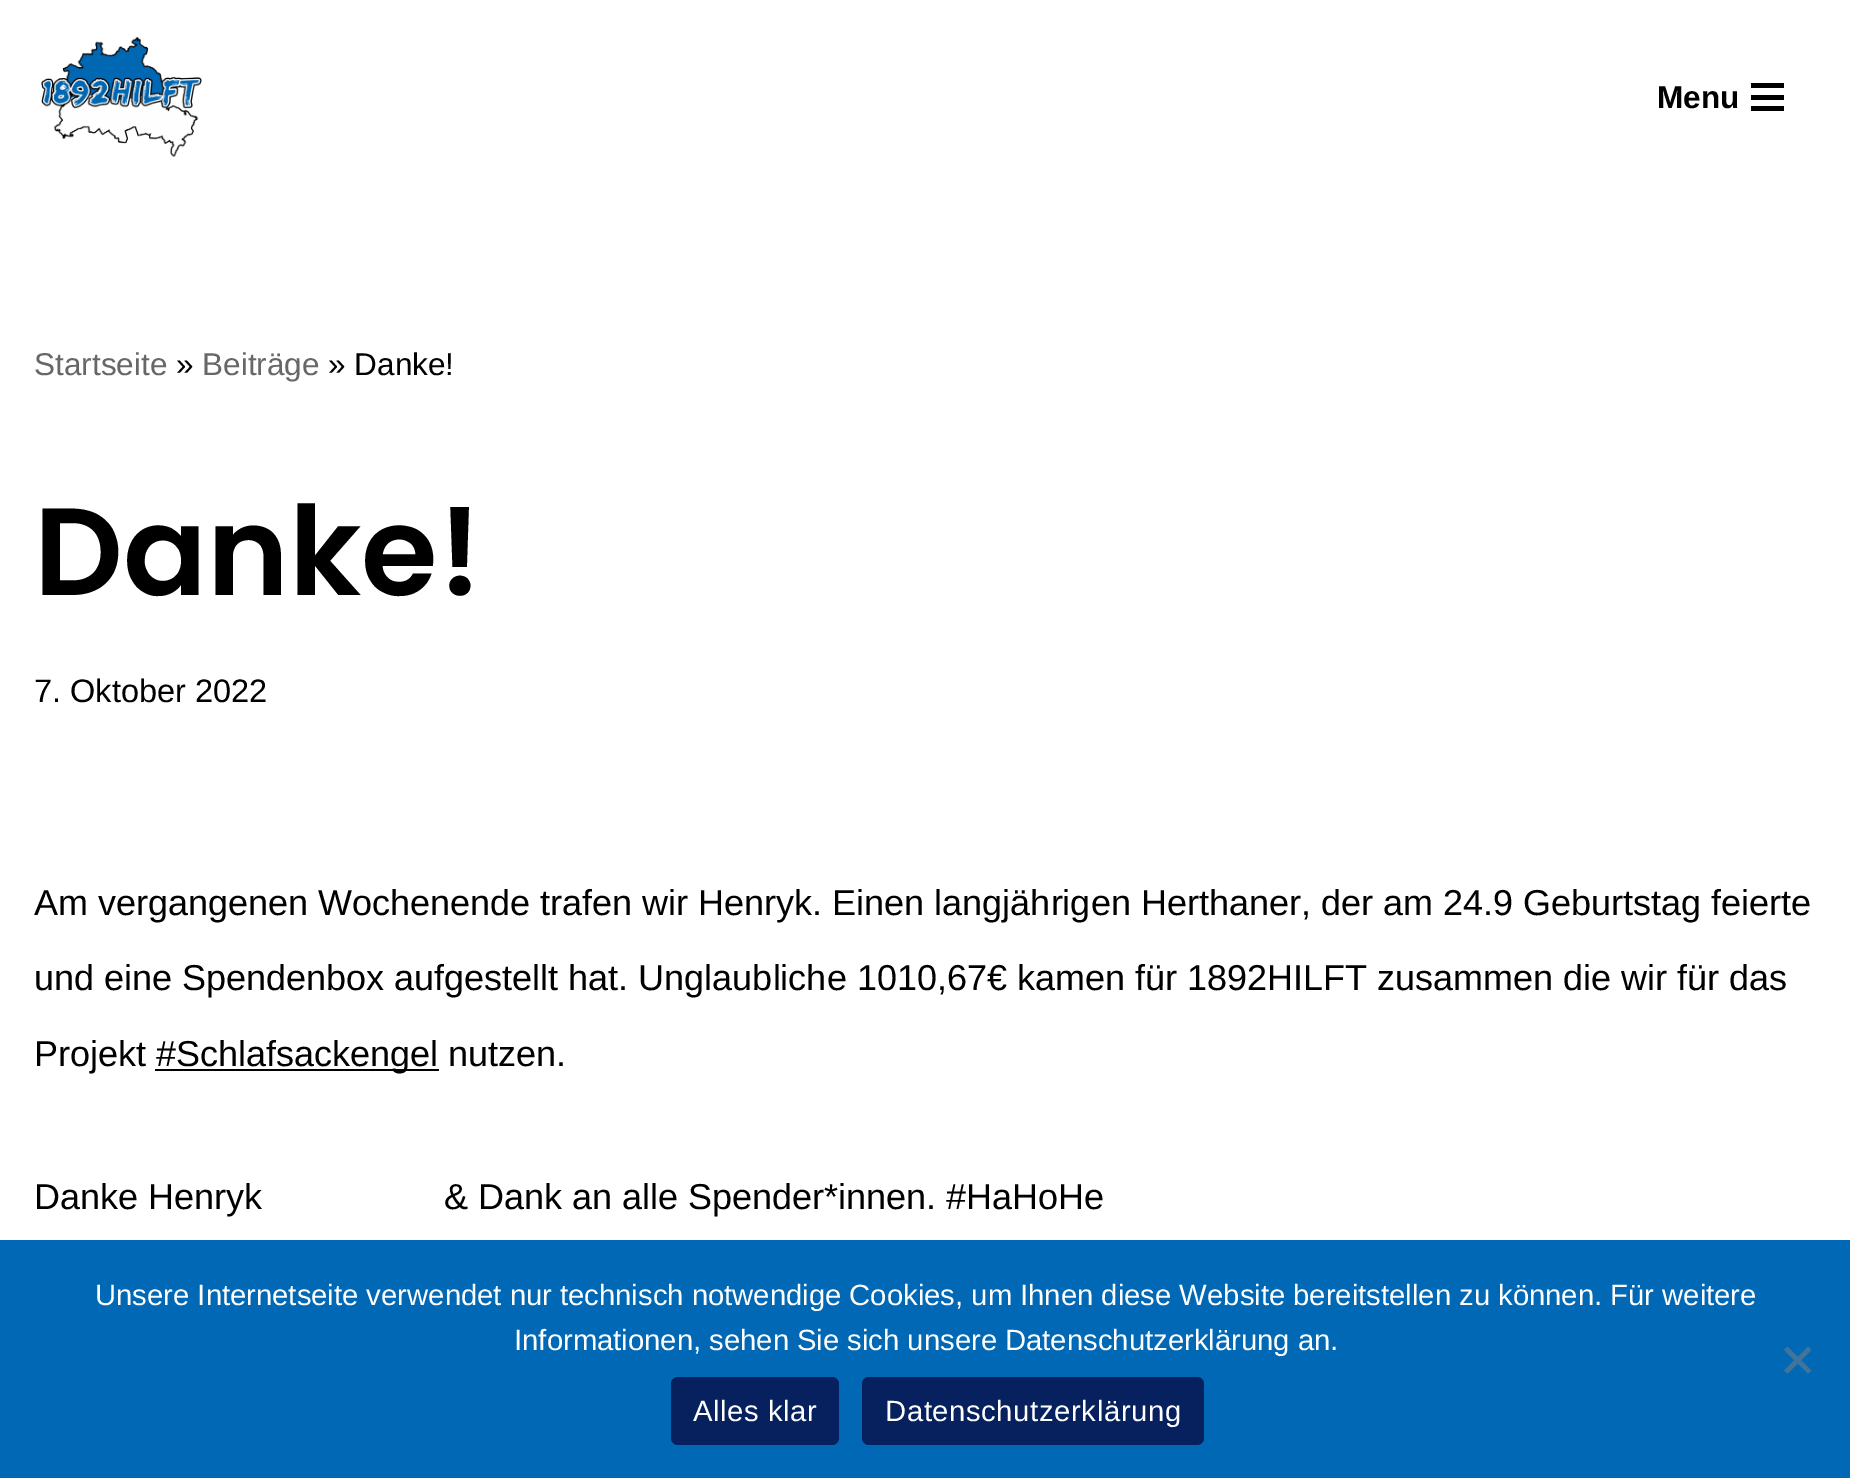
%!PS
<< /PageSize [1850 1478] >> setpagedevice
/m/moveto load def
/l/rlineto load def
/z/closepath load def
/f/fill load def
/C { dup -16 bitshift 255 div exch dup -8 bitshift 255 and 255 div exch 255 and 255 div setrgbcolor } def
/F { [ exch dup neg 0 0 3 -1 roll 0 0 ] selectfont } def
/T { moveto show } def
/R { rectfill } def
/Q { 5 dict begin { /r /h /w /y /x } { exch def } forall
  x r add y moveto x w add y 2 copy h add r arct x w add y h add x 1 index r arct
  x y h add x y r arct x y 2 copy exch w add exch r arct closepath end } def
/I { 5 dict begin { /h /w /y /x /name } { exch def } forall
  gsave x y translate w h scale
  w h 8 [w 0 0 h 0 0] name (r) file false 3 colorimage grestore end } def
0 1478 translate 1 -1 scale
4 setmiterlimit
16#FFFFFF C
0 0 1850 1478 R
(1.rgb) 41 37 161 120 I
/LiberationSans-Bold 31.5 F
16#000000 C
(Menu) 1657 108 T
1751 83 33 5 R
1751 95 33 5 R
1751 106 33 5 R
/LiberationSans-Regular 31.5 F
16#676767 C
(Startseite) 34 375 T
16#000000 C
(») 176 375 T
16#676767 C
(Beiträge) 202 375 T
16#000000 C
(» Danke!) 328 375 T
/Poppins-SemiBold 124 F
(Danke!) 34 595 T
/LiberationSans-Regular 32.5 F
(7. Oktober 2022) 34 702 T
/LiberationSans-Regular 36 F
(Am vergangenen Wochenende trafen wir Henryk. Einen langjährigen Herthaner, der am 24.9 Geburtstag feierte) 34 915 T
(und eine Spendenbox aufgestellt hat. Unglaubliche 1010,67€ kamen für 1892HILFT zusammen die wir für das) 34 990 T
(Projekt) 34 1066 T
155 1069 284 2 R
(#Schlafsackengel nutzen.) 156 1066 T
(Danke Henryk) 34 1209 T
(& Dank an alle Spender*innen. #HaHoHe) 444 1209 T
16#0068B4 C
0 1240 1850 238 R
/LiberationSans-Regular 29.25 F
16#FFFFFF C
(Unsere Internetseite verwendet nur technisch notwendige Cookies, um Ihnen diese Website bereitstellen zu können. Für weitere) 95 1305 T
(Informationen, sehen Sie sich unsere Datenschutzerklärung an.) 514 1350 T
16#40749A C
1808 1346.5 m 3.5 3.5 l -24 23.5 l -3.5 -3 l z f
1784 1350 m 3.5 -3.5 l 24 24 l -3.5 3 l z f
16#07215E C
671 1377 168 68 7 Q f
16#FFFFFF C
693 1421 m .6 0 (Alles klar) ashow
16#07215E C
862 1377 342 68 7 Q f
16#FFFFFF C
885 1421 m .6 0 (Datenschutzerklärung) ashow
showpage
